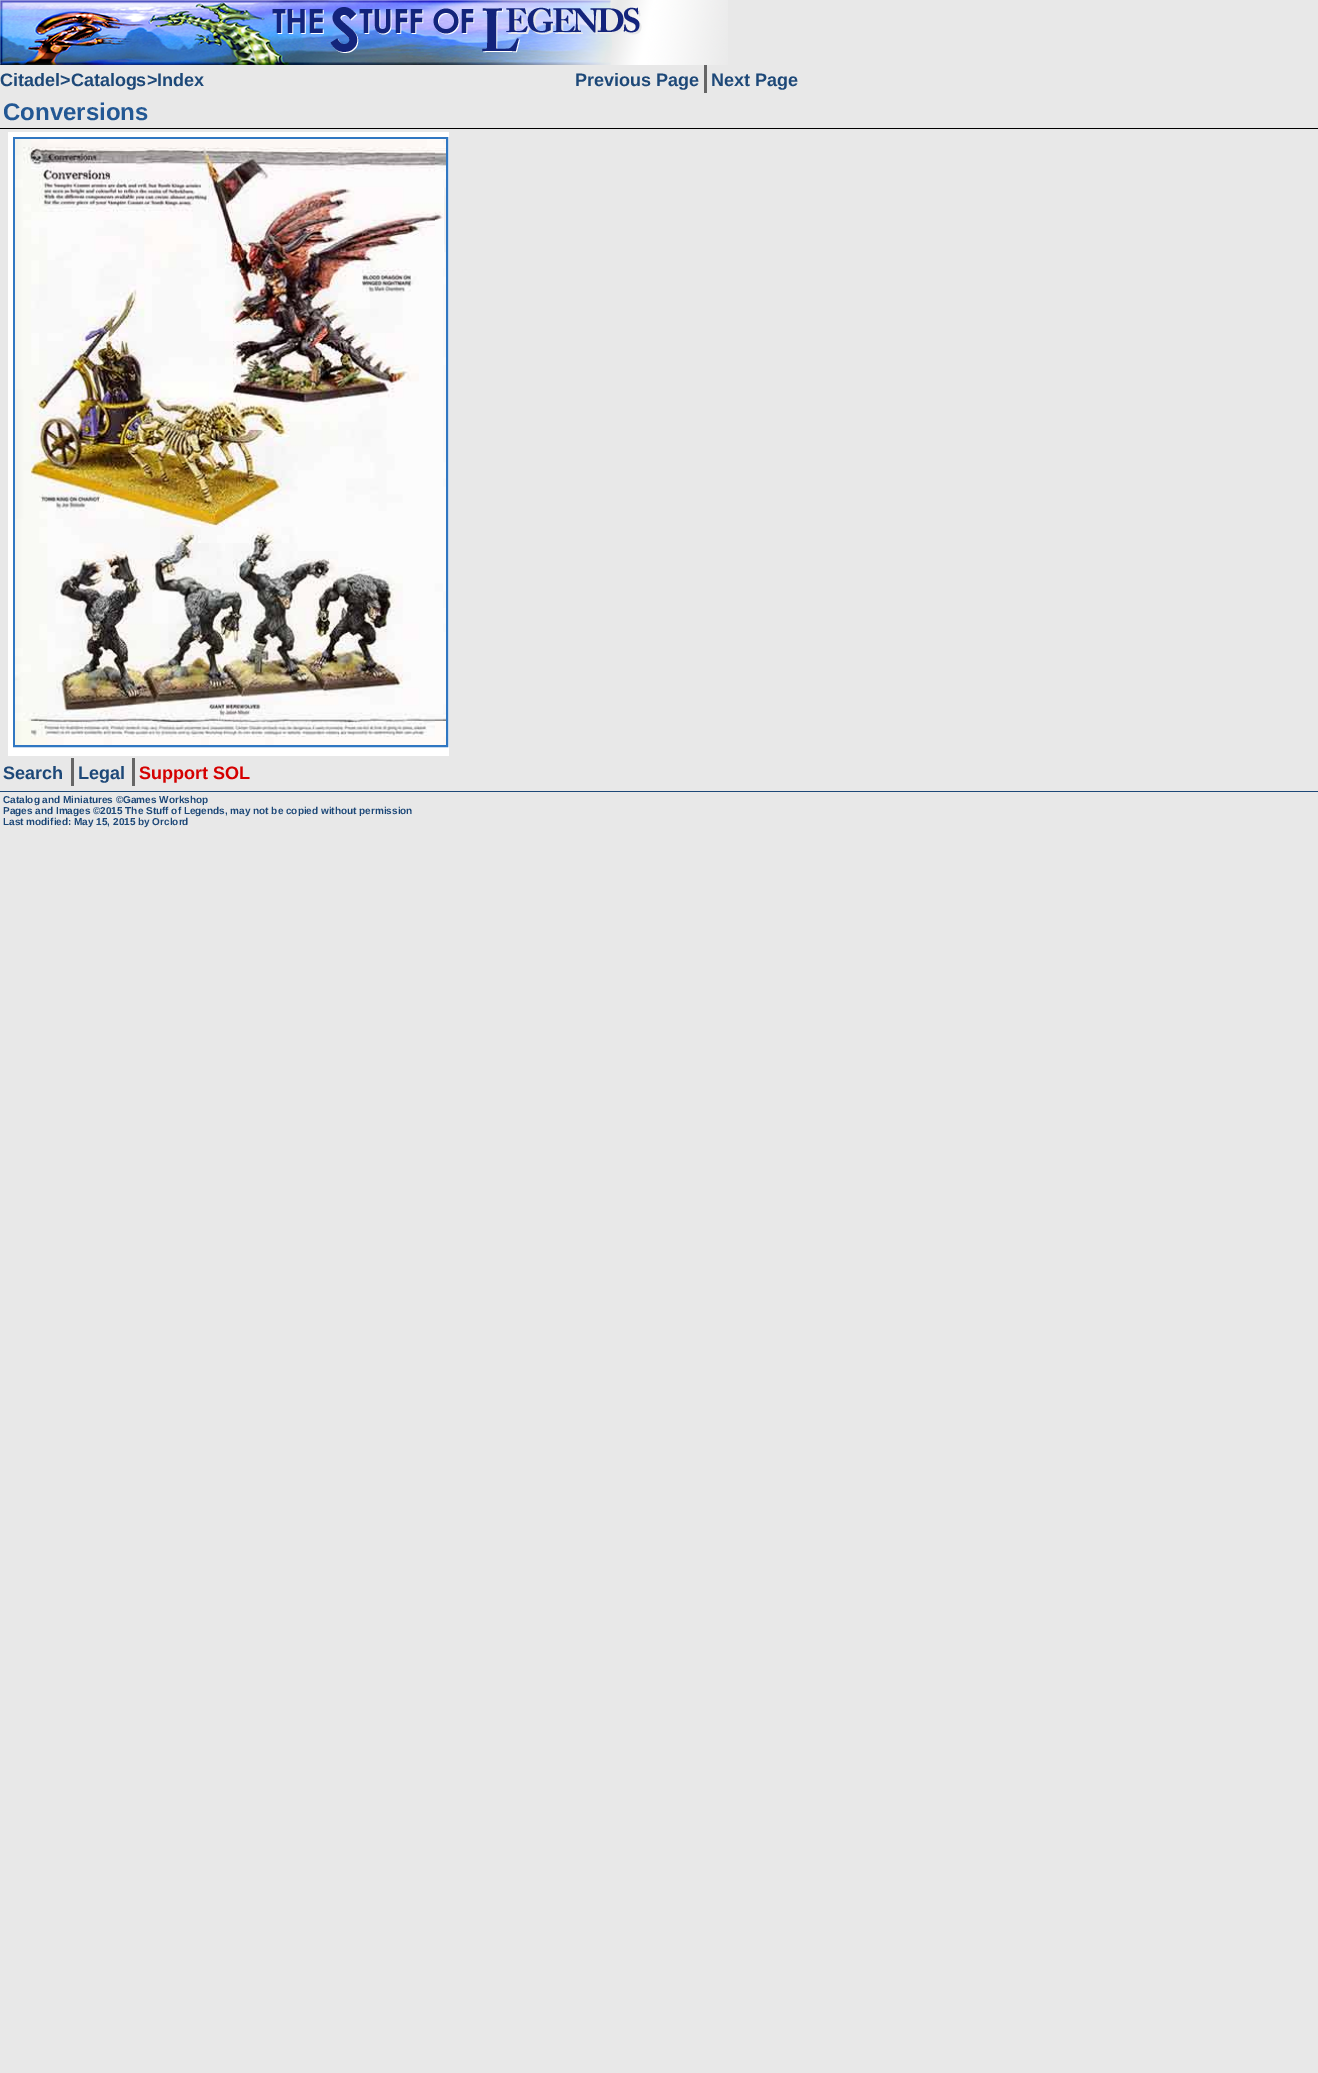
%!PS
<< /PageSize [1318 2073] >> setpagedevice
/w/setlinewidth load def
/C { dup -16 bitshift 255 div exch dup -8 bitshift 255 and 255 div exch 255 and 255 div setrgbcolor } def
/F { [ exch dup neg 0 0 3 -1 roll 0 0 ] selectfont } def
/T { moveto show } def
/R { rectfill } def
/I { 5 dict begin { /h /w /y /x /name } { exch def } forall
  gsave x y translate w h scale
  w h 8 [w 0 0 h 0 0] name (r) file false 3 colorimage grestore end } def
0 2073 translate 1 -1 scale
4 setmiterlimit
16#E8E8E8 C
0 0 1318 2073 R
(1.rgb) 0 0 728 65 I
/LiberationSans-Bold 18 F
16#1D4878 C
(Citadel>Catalogs>Index) 0 86 T
(Previous Page) 575 86 T
16#666666 C
704 65 3 28 R
16#1D4878 C
(Next Page) 711 86 T
16#000000 C
0 128 1318 1 R
/LiberationSans-Bold 24 F
16#235894 C
(Conversions) 3 120 T
16#FFFFFF C
8 132 441 624 R
16#3077C2 C
2 w
14 138 433 608 rectstroke
(2.rgb) 15 139 431 606 I
/LiberationSans-Bold 18 F
16#1D4878 C
(Search) 3 779 T
16#666666 C
71 758 3 28 R
16#1D4878 C
(Legal) 78 779 T
16#666666 C
132 758 3 28 R
16#D50000 C
(Support SOL) 139 779 T
16#1D4878 C
0 791 1318 1 R
/LiberationSans-Bold 10 F
(Catalog and Miniatures ©Games Workshop) 3 803 T
(Pages and Images ©2015 The Stuff of Legends, may not be copied without permission) 3 814 T
(Last modified: May 15, 2015 by Orclord) 3 825 T
showpage
